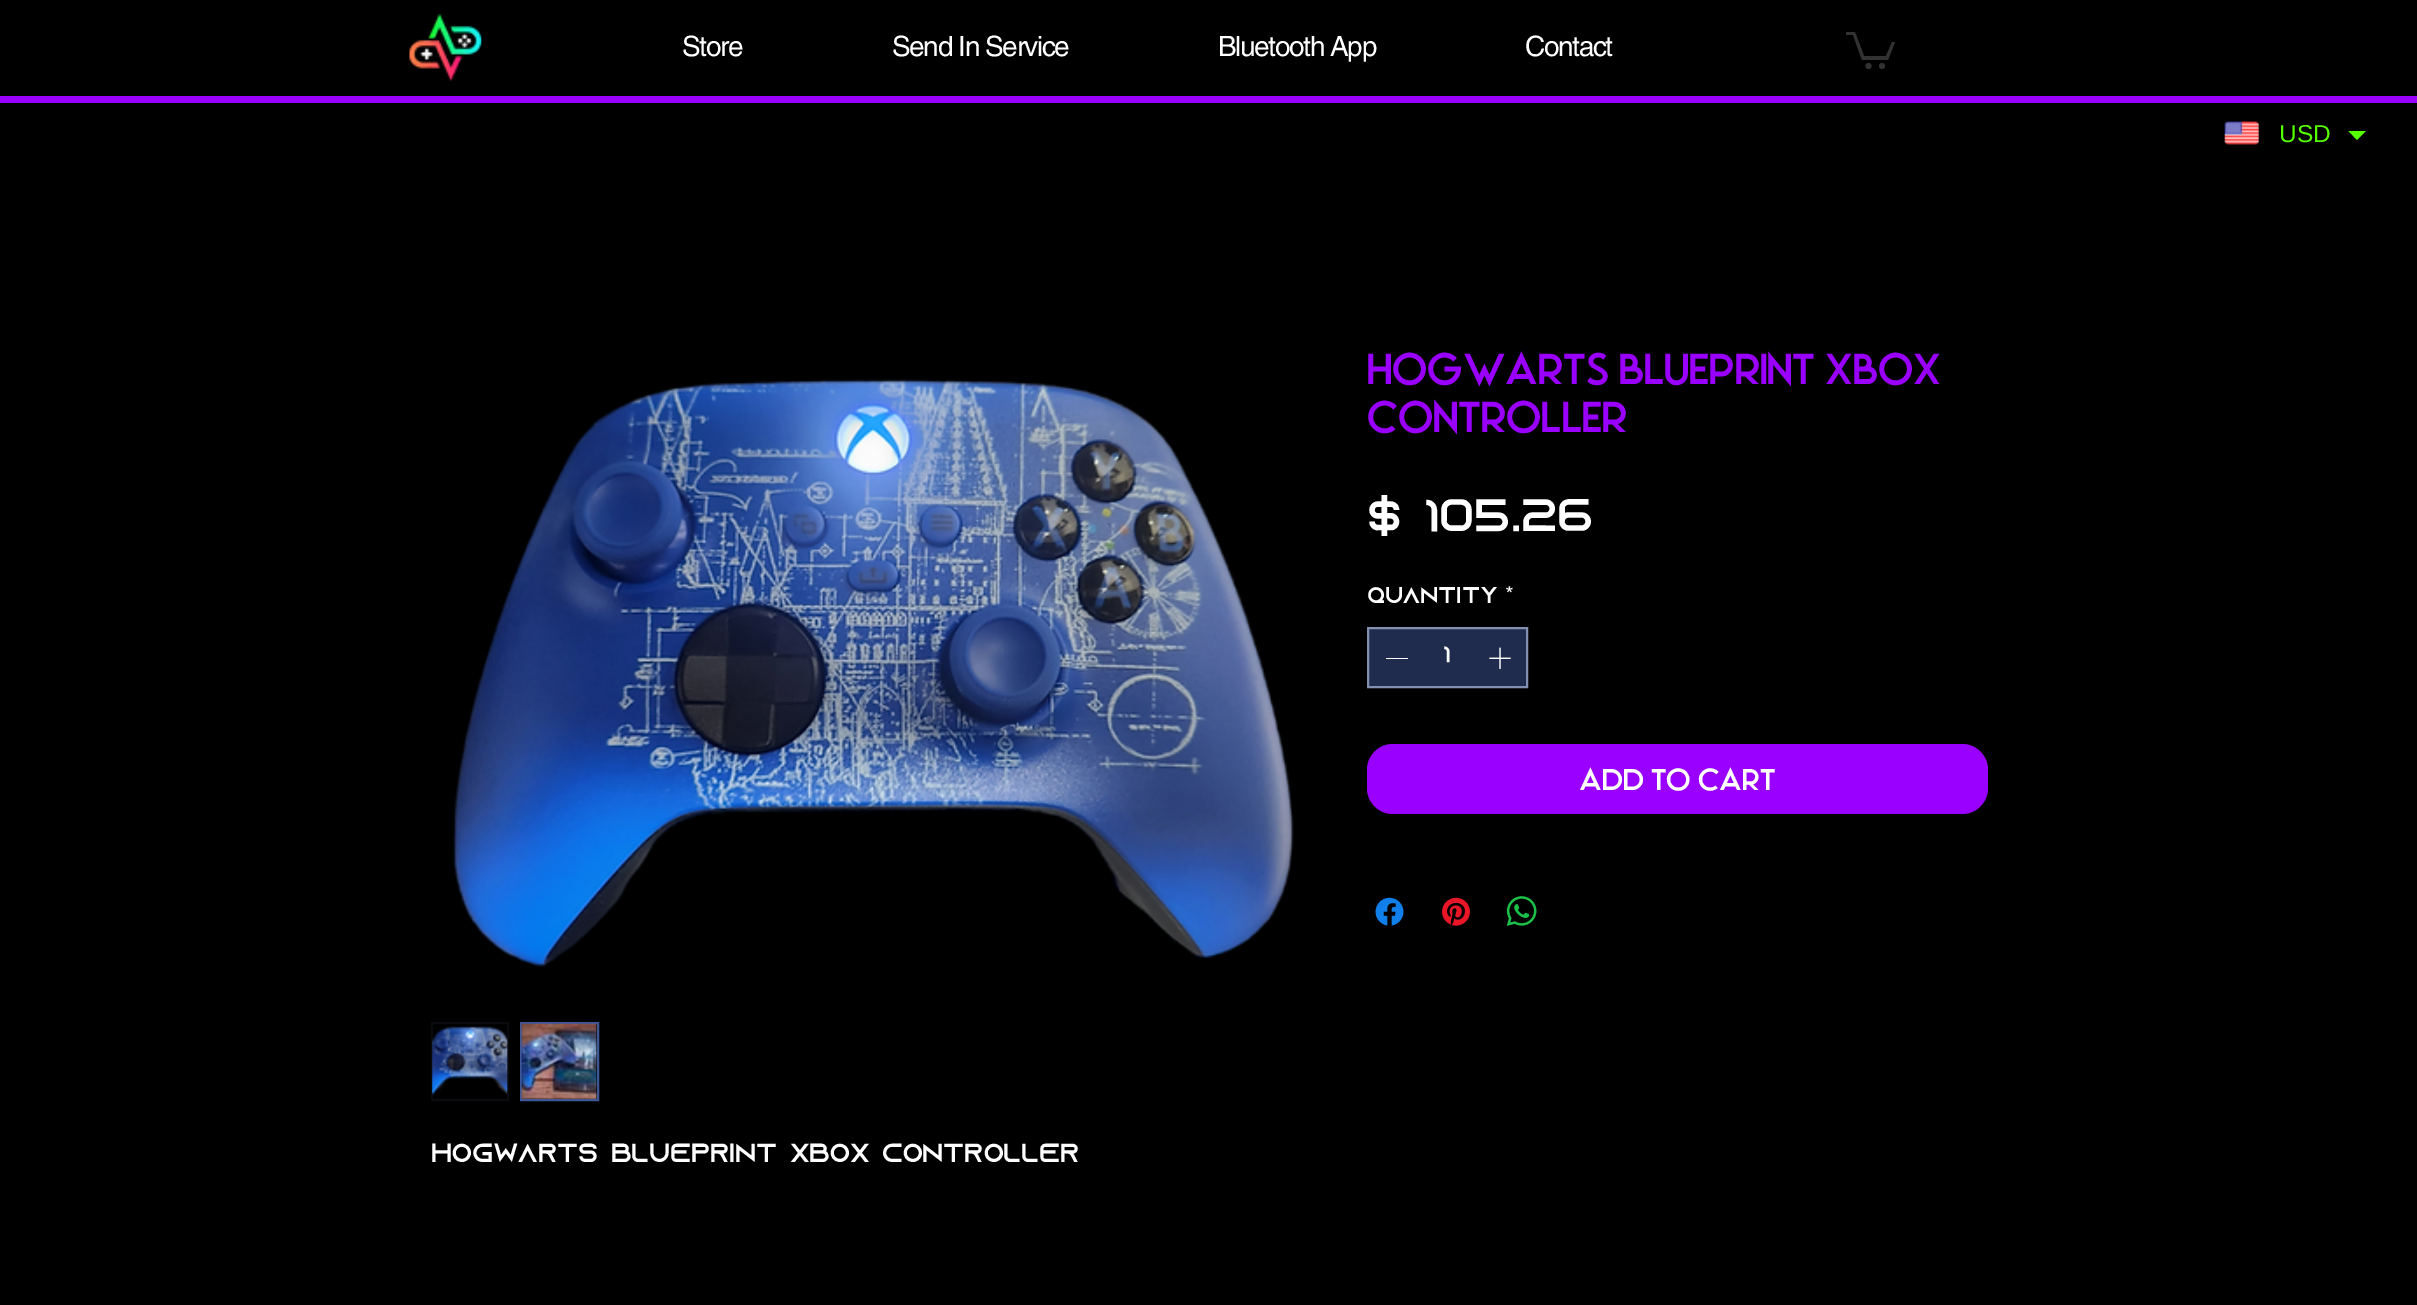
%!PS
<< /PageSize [2417 1305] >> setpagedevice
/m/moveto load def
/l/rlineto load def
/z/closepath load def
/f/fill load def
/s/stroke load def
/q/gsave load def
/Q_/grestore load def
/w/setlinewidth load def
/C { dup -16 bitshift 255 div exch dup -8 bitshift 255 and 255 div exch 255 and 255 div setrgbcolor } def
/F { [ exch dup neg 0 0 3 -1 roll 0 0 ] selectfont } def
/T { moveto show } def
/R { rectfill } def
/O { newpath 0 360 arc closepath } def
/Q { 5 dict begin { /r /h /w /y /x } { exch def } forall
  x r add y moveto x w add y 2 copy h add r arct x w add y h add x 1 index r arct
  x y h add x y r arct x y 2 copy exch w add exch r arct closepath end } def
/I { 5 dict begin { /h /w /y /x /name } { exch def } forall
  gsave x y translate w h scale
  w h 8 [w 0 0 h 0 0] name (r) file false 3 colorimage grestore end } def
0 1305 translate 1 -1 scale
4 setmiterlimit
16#000000 C
0 0 2417 1305 R
(1.rgb) 409 14 73 67 I
/helvetica-Regular 28 F
16#FFFFFF C
682 56 m -1.4 0 (Store) ashow
892 56 m -1.4 0 (Send In Service) ashow
1218 56 m -1.4 0 (Bluetooth App) ashow
1525 56 m -1.4 0 (Contact) ashow
16#323232 C
1895 42 m -7 18 l -26 0 l -9 -25 l -7 0 l 0 -3 l 9 0 l 9 24 l 22 0 l 6 -14 l f
1882 66 3 O f
1868.5 66 3 O f
16#9A00FF C
0 96 2417 7 R
/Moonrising-Regular 40.25 F
(Hogwarts Blueprint Xbox) 1367 384 T
(Controller) 1367 432 T
/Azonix-Regular 45.5 F
16#FFFFFF C
($ 105.26) 1367 531 T
/Azonix-Regular 22.75 F
(Quantity) 1367 603 T
(*) 1505 603 T
16#1F2C4D C
1368 628 m 159 0 l 0 59 l -159 0 l z q f Q_
16#8390B3 C
2 w
s
16#FFFFFF C
1386 658 22 1 R
(1) 1443 662 T
(2.rgb) 1489 647 22 22 I
16#9A00FF C
1367 744 621 70 26 Q f
/Moonrising-Regular 28 F
16#FFFFFF C
(Add to Cart) 1579 790 T
(3.rgb) 1375 897 29 29 I
(4.rgb) 1442 897 28 29 I
(5.rgb) 1506 896 31 30 I
(6.rgb) 453 379 841 588 I
16#0A0B0E C
432 1023 76 77 rectstroke
(7.rgb) 432 1026 76 70 I
16#3D5799 C
521 1023 77 77 rectstroke
(8.rgb) 521 1023 77 77 I
/Azonix-Regular 26.25 F
16#FFFFFF C
(Hogwarts Blueprint Xbox Controller) 431 1162 T
(9.rgb) 2224 121 35 24 I
/LiberationSans-Regular 24.5 F
16#55FF00 C
(USD) 2279 142 T
2348.5 131 m 17.5 0 l -9 9 l z f
showpage
